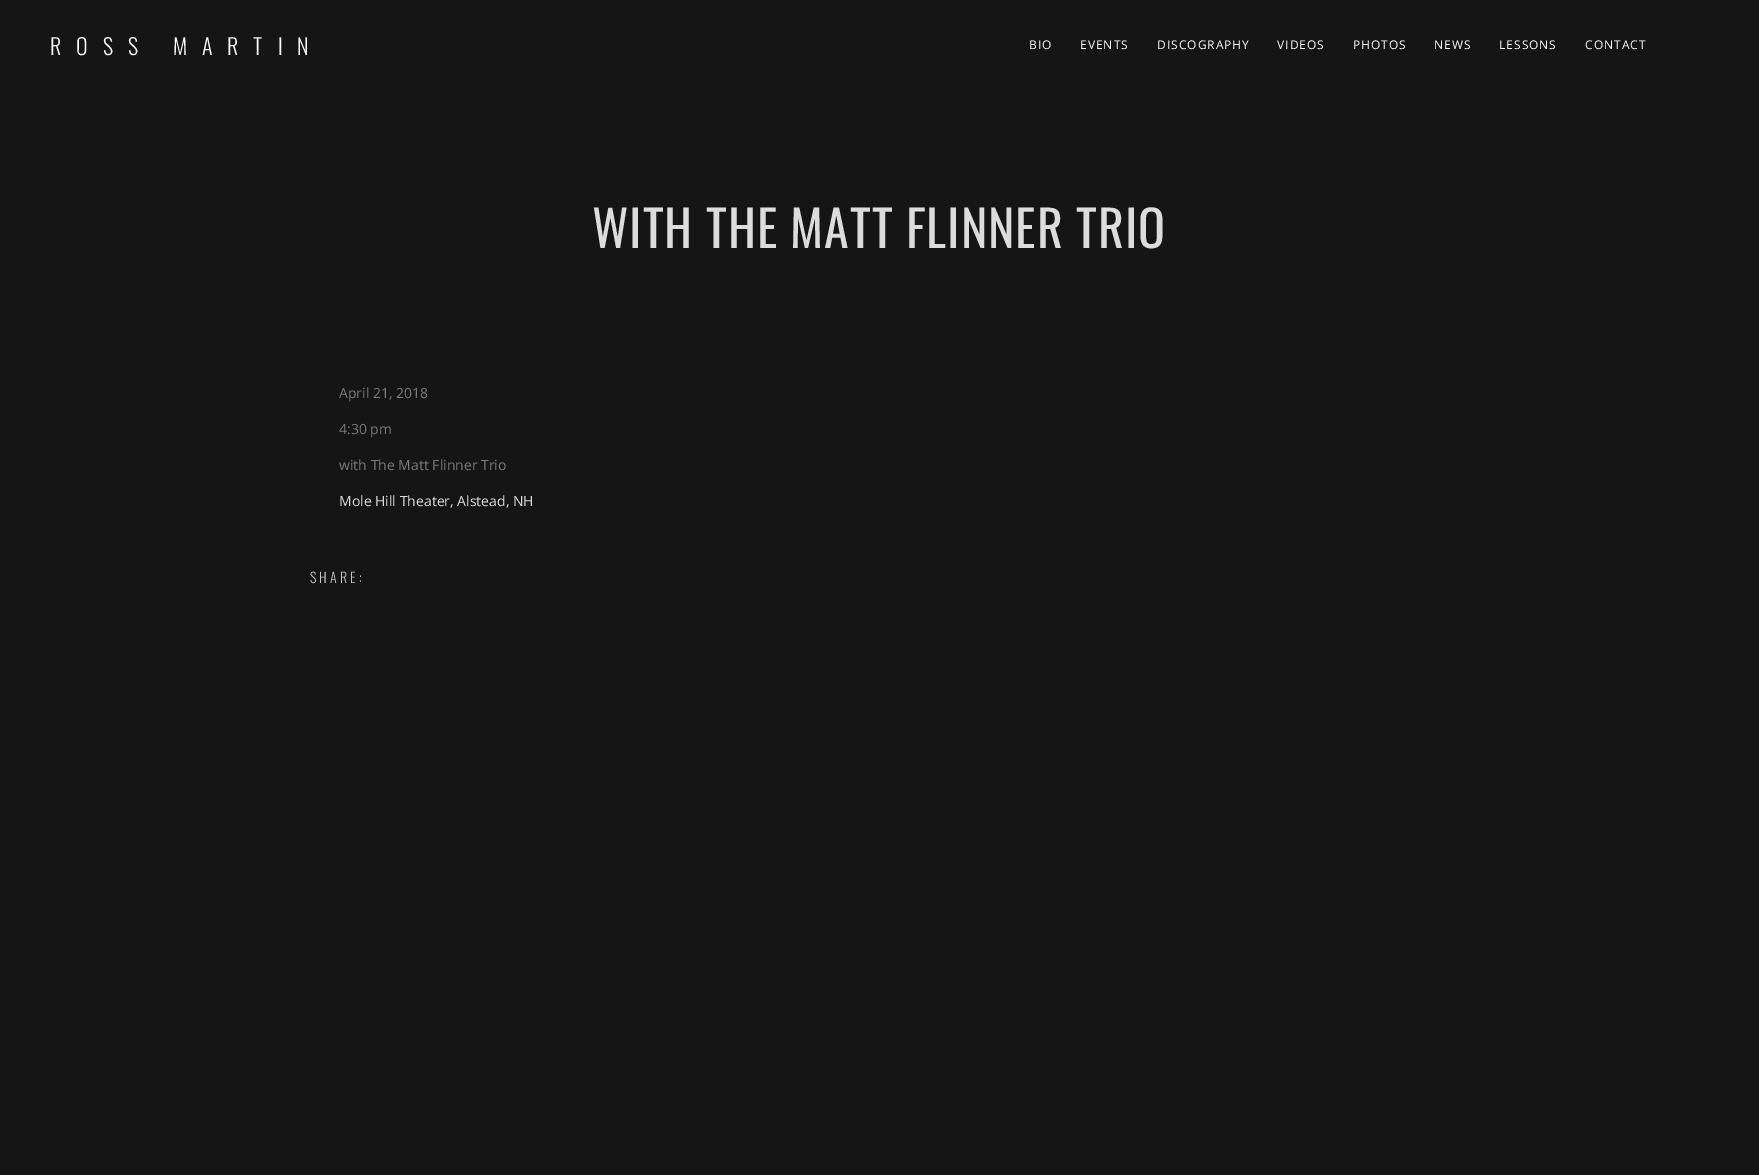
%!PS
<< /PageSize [1759 1175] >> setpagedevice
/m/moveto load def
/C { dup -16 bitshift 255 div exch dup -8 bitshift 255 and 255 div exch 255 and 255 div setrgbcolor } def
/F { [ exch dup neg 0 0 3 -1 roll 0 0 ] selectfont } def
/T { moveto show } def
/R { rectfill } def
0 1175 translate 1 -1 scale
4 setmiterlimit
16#151515 C
0 0 1759 1175 R
/Oswald-Light 22 F
16#FFFFFF C
50 55 m 15 0 (ROSS MARTIN) ashow
/OpenSans-Regular 12 F
1029 49 m 1 0 (BIO) ashow
1080 49 m 1 0 (EVENTS) ashow
1157 49 m 1 0 (DISCOGRAPHY) ashow
1277 49 m 1 0 (VIDEOS) ashow
1353 49 m 1 0 (PHOTOS) ashow
1434 49 m 1 0 (NEWS) ashow
1499 49 m 1 0 (LESSONS) ashow
1585 49 m 1 0 (CONTACT) ashow
/Oswald-Regular 50 F
16#DCDCDC C
592 248 m 1 0 (WITH THE MATT FLINNER TRIO) ashow
/OpenSans-Regular 14 F
16#7B7B7B C
(April 21, 2018) 339 398 T
(4:30 pm) 339 434 T
(with The Matt Flinner Trio) 339 470 T
16#DCDCDC C
(Mole Hill Theater, Alstead, NH) 339 506 T
/Oswald-Light 14 F
16#C5C5C5 C
310 583 m 3 0 (SHARE:) ashow
showpage
